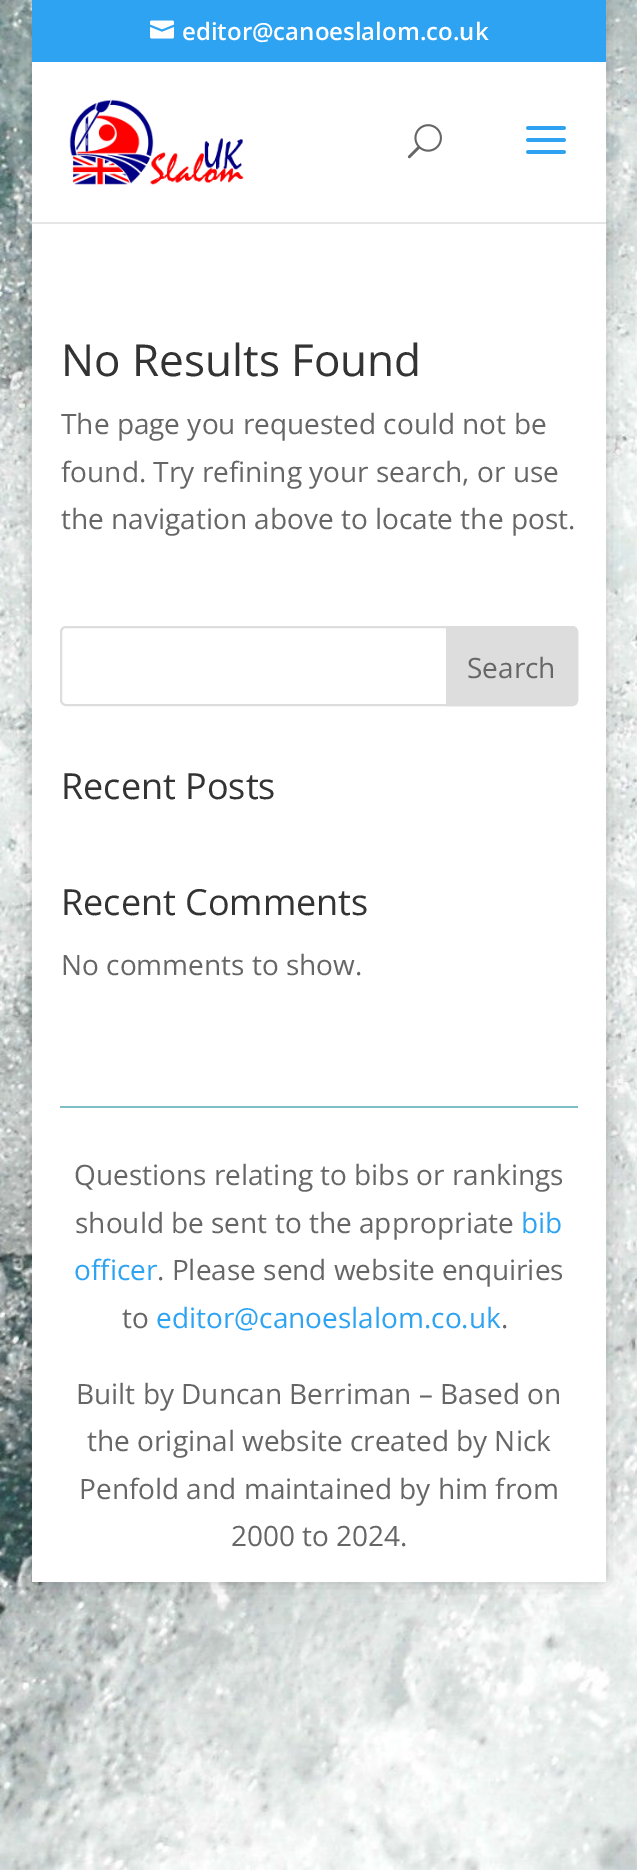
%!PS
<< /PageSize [637 1870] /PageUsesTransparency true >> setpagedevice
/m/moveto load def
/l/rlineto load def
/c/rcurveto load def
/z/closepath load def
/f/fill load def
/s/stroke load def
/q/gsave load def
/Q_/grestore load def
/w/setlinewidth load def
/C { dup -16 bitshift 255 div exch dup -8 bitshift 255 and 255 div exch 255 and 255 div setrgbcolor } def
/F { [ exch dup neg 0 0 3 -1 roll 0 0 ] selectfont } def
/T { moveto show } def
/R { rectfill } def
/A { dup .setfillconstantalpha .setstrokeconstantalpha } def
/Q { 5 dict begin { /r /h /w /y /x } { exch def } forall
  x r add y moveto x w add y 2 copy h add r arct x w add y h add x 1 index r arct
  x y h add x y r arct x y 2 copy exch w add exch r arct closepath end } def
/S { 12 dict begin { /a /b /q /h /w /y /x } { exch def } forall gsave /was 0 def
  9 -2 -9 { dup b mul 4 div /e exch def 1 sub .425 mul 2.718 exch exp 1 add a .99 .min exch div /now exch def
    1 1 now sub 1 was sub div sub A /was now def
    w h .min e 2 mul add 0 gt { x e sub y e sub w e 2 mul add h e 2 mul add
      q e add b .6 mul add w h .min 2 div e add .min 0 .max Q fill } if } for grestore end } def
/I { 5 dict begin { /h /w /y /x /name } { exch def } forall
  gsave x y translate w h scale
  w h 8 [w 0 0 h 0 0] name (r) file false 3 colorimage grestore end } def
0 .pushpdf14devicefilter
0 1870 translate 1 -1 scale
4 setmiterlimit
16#FFFFFF C
0 0 637 1870 R
(1.rgb) 0 0 637 1870 I
16#000000 C
32 0 574 1582 0 10 .2 S
16#2EA3F2 C
32 0 574 62 R
(2.rgb) 150 20 24 19 I
/OpenSans-SemiBold 24 F
16#FFFFFF C
(editor@canoeslalom.co.uk) 182 40 T
16#E6E6E6 C
32 222 574 2 R
16#FFFFFF C
32 62 574 160 R
(3.rgb) 69 99 175 86 I
(4.rgb) 407 124 35 35 I
(5.rgb) 526 126 40 28 I
32 224 574 1358 R
/OpenSans-Regular 44 F
16#333333 C
(No Results Found) 61 376 T
/OpenSans-Regular 28 F
16#666666 C
(The page you requested could not be) 61 434 T
(found. Try refining your search, or use) 61 482 T
(the navigation above to locate the post.) 61 529 T
16#DDDDDD C
2 w
61 627 516 78 5 Q s
447 627 m 125 0 l 3 0 5 2 5 5 c 0 68 l 0 3 -2 5 -5 5 c -125 0 l z q f Q_
s
16#666666 C
(Search) 467 678 T
/OpenSans-Regular 36 F
16#333333 C
(Recent Posts) 61 799 T
(Recent Comments) 61 915 T
/OpenSans-Regular 28 F
16#666666 C
(No comments to show.) 61 975 T
16#7EBEC5 C
60 1106 518 2 R
16#666666 C
(Questions relating to bibs or rankings) 74 1185 T
(should be sent to the appropriate) 75 1233 T
16#2EA3F2 C
(bib) 521 1233 T
(officer) 74 1280 T
16#666666 C
(. Please send website enquiries) 157 1280 T
(to) 122 1328 T
16#2EA3F2 C
(editor@canoeslalom.co.uk) 156 1328 T
16#666666 C
(.) 501 1328 T
(Built by Duncan Berriman – Based on) 76 1404 T
(the original website created by Nick) 87 1451 T
(Penfold and maintained by him from) 79 1499 T
(2000 to 2024.) 231 1546 T
.poppdf14devicefilter showpage
